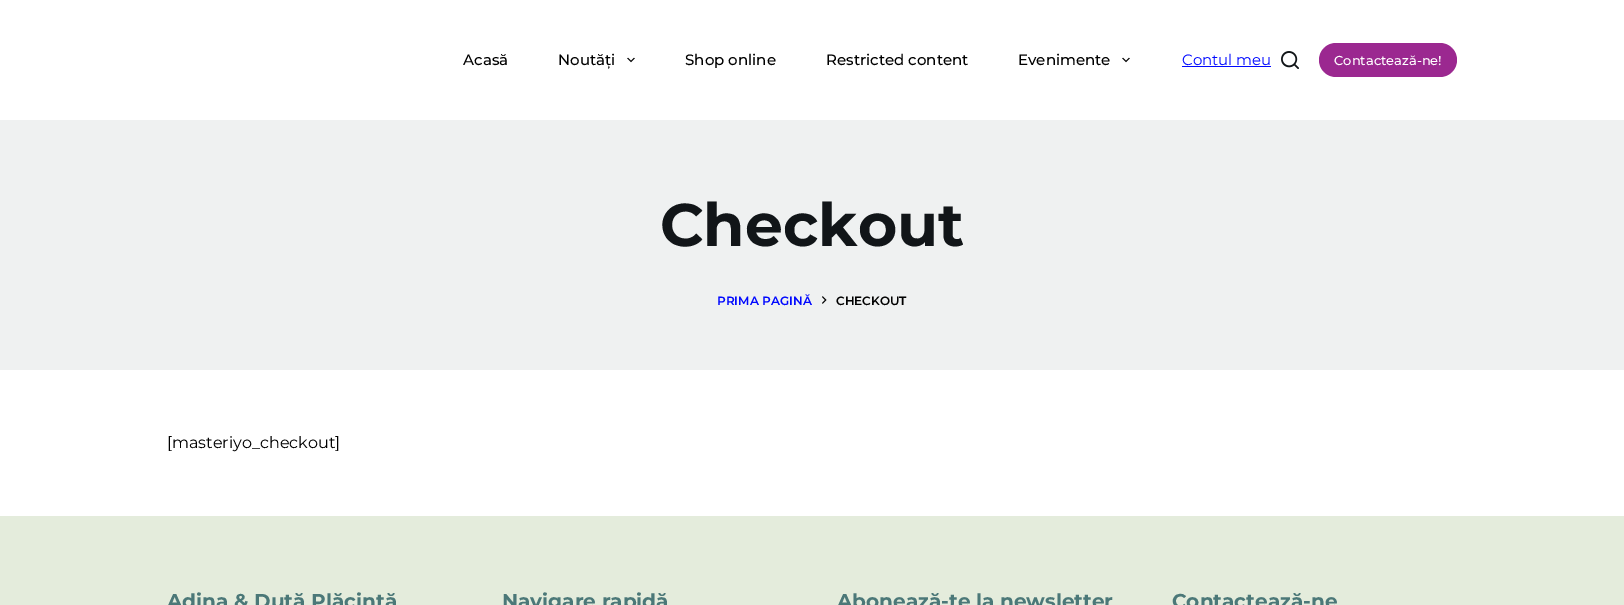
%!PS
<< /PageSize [1624 605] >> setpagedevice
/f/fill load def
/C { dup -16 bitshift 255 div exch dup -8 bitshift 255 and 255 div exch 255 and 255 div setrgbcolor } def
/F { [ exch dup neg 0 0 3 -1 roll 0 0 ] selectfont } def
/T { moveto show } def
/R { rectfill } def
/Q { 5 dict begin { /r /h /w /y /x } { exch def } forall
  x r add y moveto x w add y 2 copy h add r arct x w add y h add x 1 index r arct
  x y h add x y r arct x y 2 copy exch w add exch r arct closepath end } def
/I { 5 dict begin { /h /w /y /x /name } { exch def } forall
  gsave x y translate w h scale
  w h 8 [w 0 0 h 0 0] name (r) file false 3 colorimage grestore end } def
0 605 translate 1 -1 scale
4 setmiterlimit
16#FFFFFF C
0 0 1624 605 R
/Montserrat-Medium 15 F
16#000000 C
(Acasă) 463 65 T
(Noutăți) 558 65 T
(1.rgb) 627 57 8 6 I
(Shop online) 685 65 T
(Restricted content) 826 65 T
(Evenimente) 1018 65 T
(1.rgb) 1122 57 8 6 I
/Montserrat-Regular 15 F
16#0008FF C
(Contul meu) 1182 65 T
1182 66 89 1 R
(2.rgb) 1281 51 18 18 I
16#9B2890 C
1319 43 138 34 17 Q f
/Montserrat-Medium 13 F
16#FFFFFF C
(Contactează-ne!) 1334 65 T
16#EFF1F1 C
0 120 1624 250 R
/Montserrat-Bold 60 F
16#111518 C
(Checkout) 660 246 T
/Montserrat-SemiBold 12 F
16#0008FF C
(PRIMA PAGINĂ) 717 305 T
(3.rgb) 822 296 5 8 I
16#000000 C
(CHECKOUT) 836 305 T
/Montserrat-Regular 16 F
([masteriyo_checkout]) 167 448 T
16#E4ECDC C
0 516 1624 89 R
/Montserrat-Bold 20 F
16#4B7878 C
(Adina & Duță Plăcintă) 167 608 T
(Navigare rapidă) 502 608 T
(Abonează-te la newsletter) 837 608 T
(Contactează-ne) 1172 608 T
showpage
